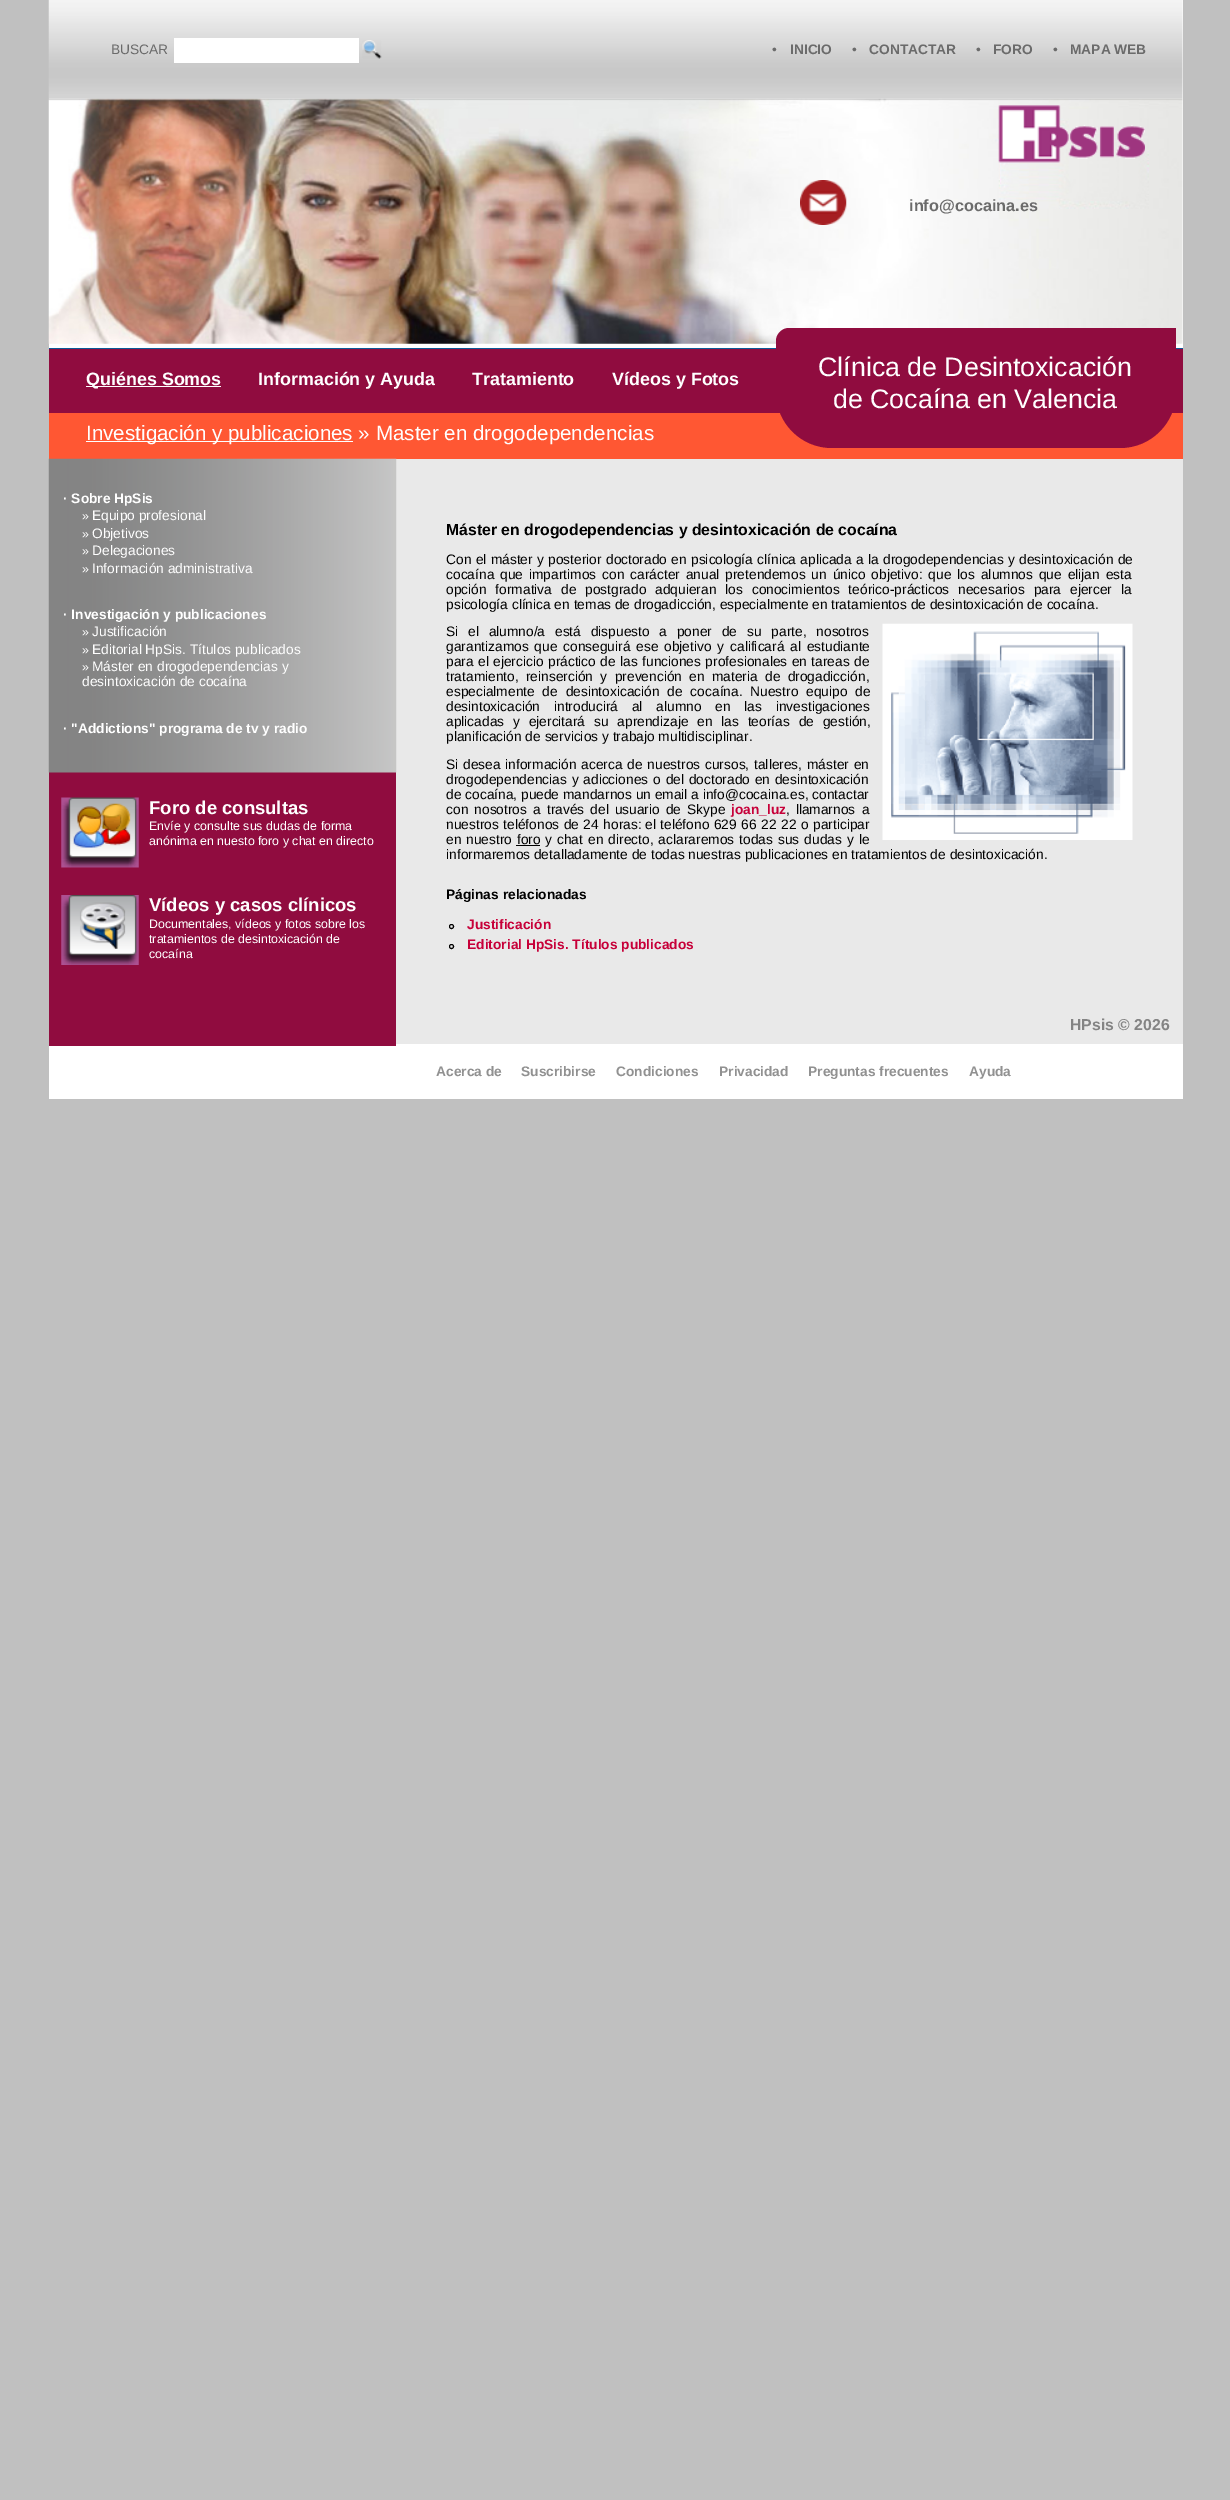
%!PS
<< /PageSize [1230 2500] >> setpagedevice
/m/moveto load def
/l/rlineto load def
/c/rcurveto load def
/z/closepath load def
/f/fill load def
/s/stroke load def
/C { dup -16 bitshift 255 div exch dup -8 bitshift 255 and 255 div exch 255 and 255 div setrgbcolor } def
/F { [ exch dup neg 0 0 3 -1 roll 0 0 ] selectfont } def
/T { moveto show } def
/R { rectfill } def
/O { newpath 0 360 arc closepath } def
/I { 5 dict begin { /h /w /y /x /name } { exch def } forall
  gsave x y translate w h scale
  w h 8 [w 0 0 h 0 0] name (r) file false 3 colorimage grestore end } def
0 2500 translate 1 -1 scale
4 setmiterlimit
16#C0C0C0 C
0 0 1230 2500 R
16#FFFFFF C
49 0 1134 1099 R
(1.rgb) 48 0 1135 99 I
/LiberationSans-Regular 13.75 F
16#6B6B6B C
(BUSCAR) 111 54 T
16#FFFFFF C
174 38 185 25 R
(2.rgb) 362 40 20 19 I
16#6B6B6B C
(•) 772 54 T
/LiberationSans-Bold 13.75 F
(INICIO) 790 54 T
/LiberationSans-Regular 13.75 F
(•) 852 54 T
/LiberationSans-Bold 13.75 F
(CONTACTAR) 869 54 T
/LiberationSans-Regular 13.75 F
(•) 976 54 T
/LiberationSans-Bold 13.75 F
(FORO) 993 54 T
/LiberationSans-Regular 13.75 F
(•) 1053 54 T
/LiberationSans-Bold 13.75 F
(MAPA WEB) 1070 54 T
(3.rgb) 48 98 1135 246 I
(4.rgb) 998 105 147 58 I
(5.rgb) 800 180 47 45 I
/LiberationSans-Bold 16.25 F
(info@cocaina.es) 909 211 T
16#900C3F C
49 349 1134 64 R
16#0C5A96 C
49 348 1134 1 R
16#FFFFFF C
86 386 135 1 R
/LiberationSans-Bold 17.9 F
(Quiénes Somos) 86 385 T
(Información y Ayuda) 258 385 T
(Tratamiento) 472 385 T
(Vídeos y Fotos) 612 385 T
16#FF5733 C
49 413 1134 46 R
16#900C3F C
789 328 m 387 0 l 0 64 l 0 31 -25 56 -56 56 c -288 0 l -31 0 -56 -25 -56 -56 c 0 -51 l 0 -7 6 -13 13 -13 c z f
/LiberationSans-Regular 26.75 F
16#FFFFFF C
(Clínica de Desintoxicación) 818 376 T
(de Cocaína en Valencia) 833 408 T
86 441 267 1 R
/LiberationSans-Regular 20.6 F
(Investigación y publicaciones » Master en drogodependencias) 86 440 T
16#E9E9E9 C
396 459 787 585 R
16#900C3F C
49 772 347 274 R
(6.rgb) 48 458 349 315 I
/LiberationSans-Bold 13.75 F
16#FFFFFF C
(· Sobre HpSis) 63 503 T
/LiberationSans-Regular 12.4 F
(») 82 520 T
/LiberationSans-Regular 13.75 F
(Equipo profesional) 92 520 T
/LiberationSans-Regular 12.4 F
(») 82 538 T
/LiberationSans-Regular 13.75 F
(Objetivos) 92 538 T
/LiberationSans-Regular 12.4 F
(») 82 555 T
/LiberationSans-Regular 13.75 F
(Delegaciones) 92 555 T
/LiberationSans-Regular 12.4 F
(») 82 573 T
/LiberationSans-Regular 13.75 F
(Información administrativa) 92 573 T
/LiberationSans-Bold 13.75 F
(· Investigación y publicaciones) 63 619 T
/LiberationSans-Regular 12.4 F
(») 82 636 T
/LiberationSans-Regular 13.75 F
(Justificación) 92 636 T
/LiberationSans-Regular 12.4 F
(») 82 654 T
/LiberationSans-Regular 13.75 F
(Editorial HpSis. Títulos publicados) 92 654 T
/LiberationSans-Regular 12.4 F
(») 82 671 T
/LiberationSans-Regular 13.75 F
(Máster en drogodependencias y) 92 671 T
(desintoxicación de cocaína) 82 686 T
/LiberationSans-Bold 13.75 F
(· "Addictions" programa de tv y radio) 63 733 T
(7.rgb) 61 797 78 71 I
/LiberationSans-Bold 18.5 F
(Foro de consultas) 149 814 T
/LiberationSans-Regular 12.4 F
(Envíe y consulte sus dudas de forma) 149 830 T
(anónima en nuesto foro y chat en directo) 149 845 T
(8.rgb) 61 895 78 70 I
/LiberationSans-Bold 18.5 F
(Vídeos y casos clínicos) 149 911 T
/LiberationSans-Regular 12.4 F
(Documentales, vídeos y fotos sobre los) 149 928 T
(tratamientos de desintoxicación de) 149 943 T
(cocaína) 149 958 T
/LiberationSans-Bold 15.8 F
16#000000 C
(Máster en drogodependencias y desintoxicación de cocaína) 446 535 T
/LiberationSans-Regular 13.75 F
446 564 m .5 0 32 (Con el máster y posterior doctorado en psicología clínica aplicada a la drogodependencias y desintoxicación de) widthshow
446 579 m 2.1 0 32 (cocaína que impartimos con carácter anual pretendemos un único objetivo: que los alumnos que elijan esta) widthshow
446 594 m 5.1 0 32 (opción formativa de postgrado adquieran los conocimientos teórico-prácticos necesarios para ejercer la) widthshow
(psicología clínica en temas de drogadicción, especialmente en tratamientos de desintoxicación de cocaína.) 446 609 T
446 636 m 6 0 32 (Si el alumno/a está dispuesto a poner de su parte, nosotros) widthshow
(9.rgb) 882 623 251 217 I
446 651 m 2 0 32 (garantizamos que conseguirá ese objetivo y calificará al estudiante) widthshow
446 666 m .6 0 32 (para el ejercicio práctico de las funciones profesionales en tareas de) widthshow
446 681 m 3.5 0 32 (tratamiento, reinserción y prevención en materia de drogadicción,) widthshow
446 696 m 4 0 32 (especialmente de desintoxicación de cocaína. Nuestro equipo de) widthshow
446 711 m 10 0 32 (desintoxicación introducirá al alumno en las investigaciones) widthshow
446 726 m 5 0 32 (aplicadas y ejercitará su aprendizaje en las teorías de gestión,) widthshow
(planificación de servicios y trabajo multidisciplinar.) 446 741 T
446 769 m 1 0 32 (Si desea información acerca de nuestros cursos, talleres, máster en) widthshow
446 784 m 1 0 32 (drogodependencias y adicciones o del doctorado en desintoxicación) widthshow
(de cocaína, puede mandarnos un email a info@cocaina.es, contactar) 446 799 T
446 814 m 2.25 0 32 (con nosotros a través del usuario de Skype) widthshow
/LiberationSans-Bold 13.75 F
16#C70039 C
(joan_luz) 731 814 T
/LiberationSans-Regular 13.75 F
16#000000 C
786 814 m 2 0 32 (, llamarnos) widthshow
(a) 862 814 T
446 829 m .75 0 32 (nuestros teléfonos de 24 horas:) widthshow
645 829 m .75 0 32 (el teléfono 629 66 22 22 o participar) widthshow
446 844 m 1 0 32 (en nuestro) widthshow
(foro) 517 844 T
516 845 24 1 R
545 844 m 1.25 0 32 (y chat en directo, aclararemos todas sus dudas y le) widthshow
(informaremos detalladamente de todas nuestras publicaciones en tratamientos de desintoxicación.) 446 859 T
/LiberationSans-Bold 13.75 F
(Páginas relacionadas) 446 899 T
451.5 926.5 2 O s
16#C70039 C
(Justificación) 467 929 T
16#000000 C
451.5 946.5 2 O s
16#C70039 C
(Editorial HpSis. Títulos publicados) 467 949 T
/LiberationSans-Bold 15.8 F
16#848484 C
(HPsis © 2026) 1070 1030 T
/LiberationSans-Bold 13.75 F
16#919191 C
(Acerca de) 436 1076 T
(Suscribirse) 521 1076 T
(Condiciones) 616 1076 T
(Privacidad) 719 1076 T
(Preguntas frecuentes) 808 1076 T
(Ayuda) 969 1076 T
showpage
